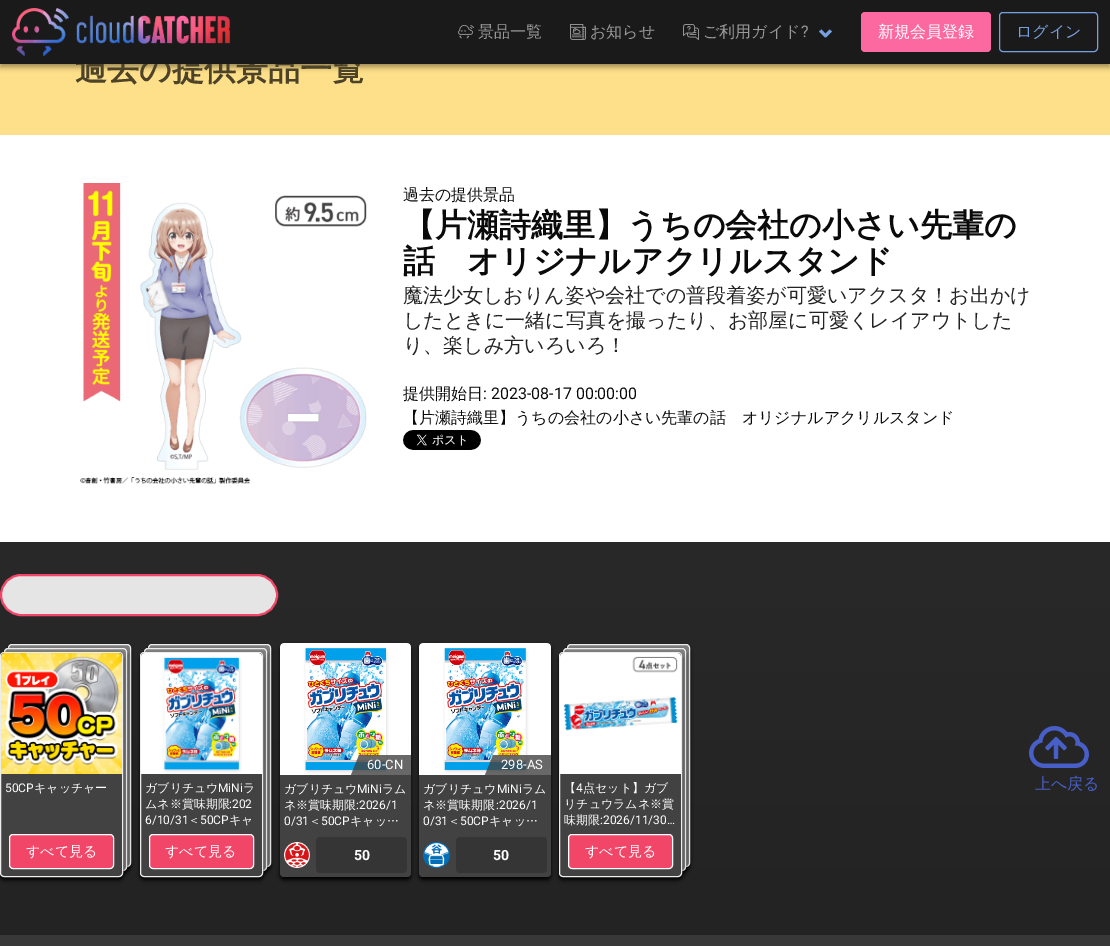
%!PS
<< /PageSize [1110 946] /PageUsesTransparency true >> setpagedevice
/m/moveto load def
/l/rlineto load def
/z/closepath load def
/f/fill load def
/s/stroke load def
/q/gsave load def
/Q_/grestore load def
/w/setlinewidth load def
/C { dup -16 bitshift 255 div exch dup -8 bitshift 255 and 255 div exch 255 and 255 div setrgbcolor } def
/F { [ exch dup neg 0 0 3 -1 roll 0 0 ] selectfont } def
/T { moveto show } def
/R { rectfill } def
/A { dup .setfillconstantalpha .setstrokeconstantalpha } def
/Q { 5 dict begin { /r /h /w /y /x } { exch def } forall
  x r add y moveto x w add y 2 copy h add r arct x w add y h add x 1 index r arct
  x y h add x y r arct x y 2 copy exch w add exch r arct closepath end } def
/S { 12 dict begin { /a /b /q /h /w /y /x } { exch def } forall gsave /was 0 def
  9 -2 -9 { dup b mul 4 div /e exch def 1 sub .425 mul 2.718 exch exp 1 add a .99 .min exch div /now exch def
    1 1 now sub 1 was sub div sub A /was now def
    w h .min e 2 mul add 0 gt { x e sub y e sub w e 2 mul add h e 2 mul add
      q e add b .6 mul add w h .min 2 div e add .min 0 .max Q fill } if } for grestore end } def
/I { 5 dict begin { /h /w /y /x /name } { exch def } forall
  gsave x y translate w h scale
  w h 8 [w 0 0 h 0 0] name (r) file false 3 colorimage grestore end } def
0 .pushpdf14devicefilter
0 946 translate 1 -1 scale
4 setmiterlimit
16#FFFFFF C
0 0 1110 946 R
q 0 542 m 1110 0 l 0 393 l -1110 0 l z clip newpath
<< /ShadingType 2 /ColorSpace /DeviceRGB /Coords [555 -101 555 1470] /Extend [true true] /Function << /FunctionType 2 /Domain [0 1] /C0 [.2 .2 .2] /C1 [.102 .102 .102] /N 1 >> >> shfill Q_
16#FFE08A C
0 64 1110 71 R
16#000000 C
0 3 1110 64 0 3 .4 S
/WenQuanYiZenHei-Bold 32 F
16#4D4329 C
(過去の提供景品一覧) 75 80 T
16#1A1A1A C
0 0 1110 64 R
(1.rgb) 12 8 218 48 I
(2.rgb) 458 25 16 14 I
/WenQuanYiZenHei-Medium 16 F
16#999999 C
(景品一覧) 478 37 T
(3.rgb) 570 24 16 16 I
(お知らせ) 590 37 T
(4.rgb) 683 24 16 16 I
(ご利用ガイド) 703 37 T
/Roboto-Regular 16 F
(?) 801 37 T
16#77A0DF C
824 35 m 5.5 -5.5 l 2.5 2 l -6 6 l z f
819 31.5 m 2.5 -2 l 5.5 5.5 l -2 2.5 l z f
16#FC69A1 C
861 12 130 40 4 Q f
/WenQuanYiZenHei-Medium 16 F
16#FFFFFF C
(新規会員登録) 878 37 T
16#77A0DF C
999.5 12.5 98 39 3.5 Q s
(ログイン) 1016 37 T
(5.rgb) 80 183 287 301 I
16#0A0A0A C
(過去の提供景品) 403 200 T
/WenQuanYiZenHei-Bold 32 F
(【片瀬詩織里】うちの会社の小さい先輩の) 403 236 T
(話　オリジナルアクリルスタンド) 403 272 T
/WenQuanYiZenHei-Medium 20 F
16#232323 C
(魔法少女しおりん姿や会社での普段着姿が可愛いアクスタ！お出かけ) 403 302 T
(したときに一緒に写真を撮ったり、お部屋に可愛くレイアウトした) 403 327 T
(り、楽しみ方いろいろ！) 403 352 T
/WenQuanYiZenHei-Medium 16 F
16#0A0A0A C
(提供開始日) 403 399 T
/Roboto-Regular 16 F
(: 2023-08-17 00:00:00) 483 399 T
/WenQuanYiZenHei-Medium 16 F
(【片瀬詩織里】うちの会社の小さい先輩の話　オリジナルアクリルスタンド) 403 423 T
(6.rgb) 403 430 78 20 I
16#E5E5E5 C
1 575 276 40 20 Q q f Q_
16#F14668 C
2 w
s
16#000000 C
8 647 123 223 4 2 1 S
16#818181 C
8.5 644.5 122 222 3.5 Q q f Q_
16#EDEDED C
1 w
s
16#000000 C
4 651 123 223 4 2 1 S
16#818181 C
4.5 648.5 122 222 3.5 Q q f Q_
16#EDEDED C
s
16#000000 C
0 655 123 225 4 2 1 S
16#424242 C
.5 652.5 122 224 3.5 Q q f Q_
16#EDEDED C
s
(7.rgb) 1 653 121 121 I
/Roboto-Regular 12 F
16#FFFFFF C
(50CP) 5 792 T
/WenQuanYiZenHei-Medium 12 F
(キャッチャー) 34 792 T
16#F14668 C
9.5 834.5 104 34 3.5 Q q f Q_
16#FFFFFF C
s
/WenQuanYiZenHei-Medium 14 F
(すべて見る) 26 856 T
16#000000 C
148 647 123 223 4 2 1 S
16#818181 C
148.5 644.5 122 222 3.5 Q q f Q_
16#EDEDED C
s
16#000000 C
144 651 123 223 4 2 1 S
16#818181 C
144.5 648.5 122 222 3.5 Q q f Q_
16#EDEDED C
s
16#000000 C
140 655 123 225 4 2 1 S
16#424242 C
140.5 652.5 122 224 3.5 Q q f Q_
16#EDEDED C
s
(8.rgb) 141 653 121 121 I
/WenQuanYiZenHei-Medium 12 F
16#FFFFFF C
(ガブリチュウ) 145 792 T
/Roboto-Regular 12 F
(MiNi) 218 792 T
/WenQuanYiZenHei-Medium 12 F
(ラ) 243 792 T
(ムネ※賞味期限) 145 808 T
/Roboto-Regular 12 F
(:202) 229 808 T
(6/10/31) 145 824 T
/WenQuanYiZenHei-Medium 12 F
(＜) 188 824 T
/Roboto-Regular 12 F
(50CP) 200 824 T
/WenQuanYiZenHei-Medium 12 F
(キャ) 229 824 T
16#F14668 C
149.5 834.5 104 34 3.5 Q q f Q_
16#FFFFFF C
s
/WenQuanYiZenHei-Medium 14 F
(すべて見る) 165 856 T
16#000000 C
280 646 131 234 4 2 1 S
16#424242 C
280 643 131 234 4 Q f
(9.rgb) 280 643 131 132 I
0.8 A
411 775 m -60 0 l 8 -20 l 52 0 l z f
/Roboto-Regular 13 F
1 A
16#FFFFFF C
(60-CN) 367 769 T
/WenQuanYiZenHei-Medium 12 F
(ガブリチュウ) 284 793 T
/Roboto-Regular 12 F
(MiNi) 357 793 T
/WenQuanYiZenHei-Medium 12 F
(ラム) 382 793 T
(ネ※賞味期限) 284 809 T
/Roboto-Regular 12 F
(:2026/1) 356 809 T
(0/31) 284 825 T
/WenQuanYiZenHei-Medium 12 F
(＜) 309 825 T
/Roboto-Regular 12 F
(50CP) 321 825 T
/WenQuanYiZenHei-Medium 12 F
(キャッ…) 350 825 T
(10.rgb) 284 842 26 26 I
16#353535 C
316 837 91 36 4 Q f
/Roboto-Bold 14 F
16#FFFFFF C
(50) 354 860 T
16#000000 C
419 646 132 234 4 2 1 S
16#424242 C
419 643 132 234 4 Q f
(11.rgb) 419 643 132 132 I
0.8 A
551 775 m -66 0 l 8 -20 l 58 0 l z f
/Roboto-Regular 13 F
1 A
16#FFFFFF C
(298-AS) 501 769 T
/WenQuanYiZenHei-Medium 12 F
(ガブリチュウ) 423 793 T
/Roboto-Regular 12 F
(MiNi) 497 793 T
/WenQuanYiZenHei-Medium 12 F
(ラム) 522 793 T
(ネ※賞味期限) 423 809 T
/Roboto-Regular 12 F
(:2026/1) 496 809 T
(0/31) 423 825 T
/WenQuanYiZenHei-Medium 12 F
(＜) 448 825 T
/Roboto-Regular 12 F
(50CP) 460 825 T
/WenQuanYiZenHei-Medium 12 F
(キャッ…) 489 825 T
(12.rgb) 423 842 27 26 I
16#353535 C
456 837 91 36 4 Q f
/Roboto-Bold 14 F
16#FFFFFF C
(50) 493 860 T
16#000000 C
567 647 123 223 4 2 1 S
16#818181 C
567.5 644.5 122 222 3.5 Q q f Q_
16#EDEDED C
s
16#000000 C
563 651 123 223 4 2 1 S
16#818181 C
563.5 648.5 122 222 3.5 Q q f Q_
16#EDEDED C
s
16#000000 C
559 655 123 225 4 2 1 S
16#424242 C
559.5 652.5 122 224 3.5 Q q f Q_
16#EDEDED C
s
(13.rgb) 560 653 121 121 I
/WenQuanYiZenHei-Medium 12 F
16#FFFFFF C
(【) 564 792 T
/Roboto-Regular 12 F
(4) 576 792 T
/WenQuanYiZenHei-Medium 12 F
(点セット】ガブ) 583 792 T
(リチュウラムネ※賞) 564 808 T
(味期限) 564 824 T
/Roboto-Regular 12 F
(:2026/11/30…) 600 824 T
16#F14668 C
568.5 834.5 104 34 3.5 Q q f Q_
16#FFFFFF C
s
/WenQuanYiZenHei-Medium 14 F
(すべて見る) 585 856 T
(14.rgb) 1029 726 60 42 I
/WenQuanYiZenHei-Medium 16 F
16#485FC7 C
(上へ戻る) 1035 789 T
16#383838 C
0 935 1110 11 R
.poppdf14devicefilter showpage
